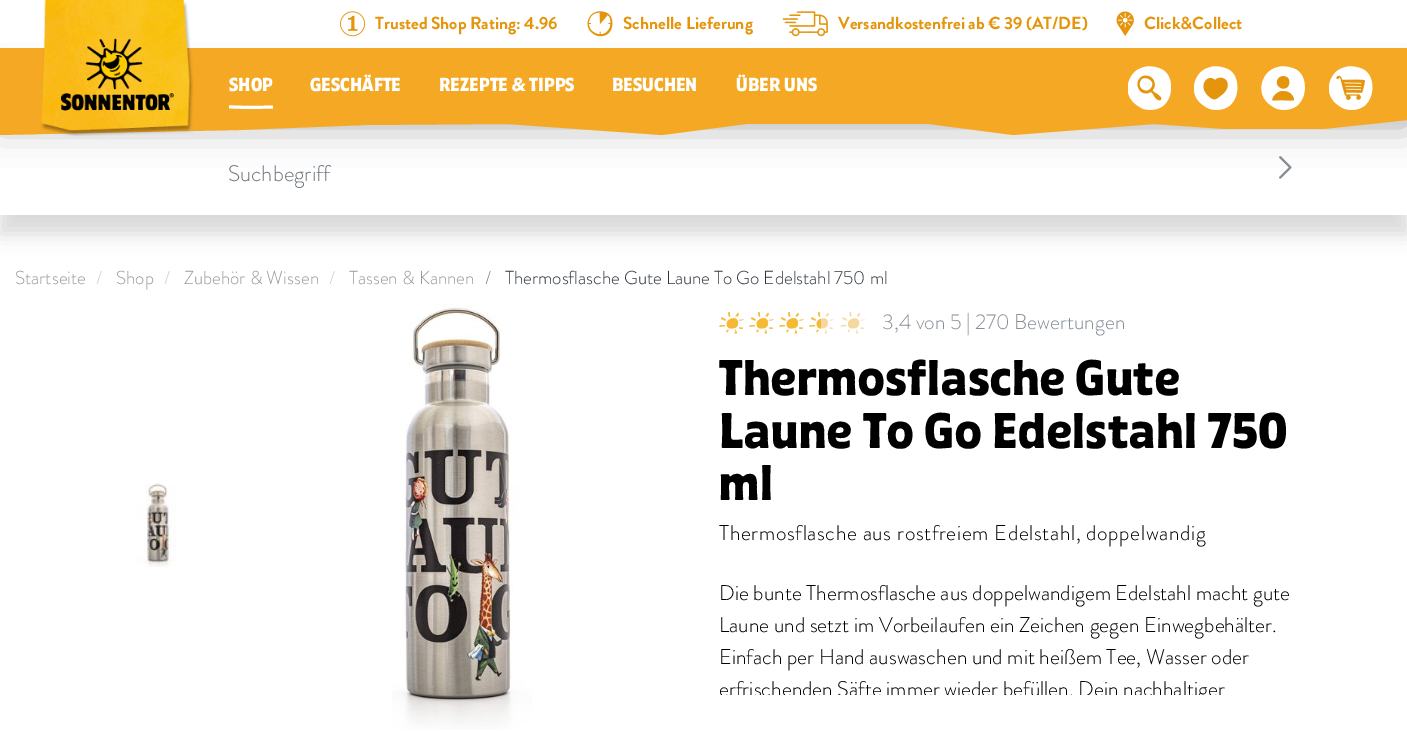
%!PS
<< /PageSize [1407 733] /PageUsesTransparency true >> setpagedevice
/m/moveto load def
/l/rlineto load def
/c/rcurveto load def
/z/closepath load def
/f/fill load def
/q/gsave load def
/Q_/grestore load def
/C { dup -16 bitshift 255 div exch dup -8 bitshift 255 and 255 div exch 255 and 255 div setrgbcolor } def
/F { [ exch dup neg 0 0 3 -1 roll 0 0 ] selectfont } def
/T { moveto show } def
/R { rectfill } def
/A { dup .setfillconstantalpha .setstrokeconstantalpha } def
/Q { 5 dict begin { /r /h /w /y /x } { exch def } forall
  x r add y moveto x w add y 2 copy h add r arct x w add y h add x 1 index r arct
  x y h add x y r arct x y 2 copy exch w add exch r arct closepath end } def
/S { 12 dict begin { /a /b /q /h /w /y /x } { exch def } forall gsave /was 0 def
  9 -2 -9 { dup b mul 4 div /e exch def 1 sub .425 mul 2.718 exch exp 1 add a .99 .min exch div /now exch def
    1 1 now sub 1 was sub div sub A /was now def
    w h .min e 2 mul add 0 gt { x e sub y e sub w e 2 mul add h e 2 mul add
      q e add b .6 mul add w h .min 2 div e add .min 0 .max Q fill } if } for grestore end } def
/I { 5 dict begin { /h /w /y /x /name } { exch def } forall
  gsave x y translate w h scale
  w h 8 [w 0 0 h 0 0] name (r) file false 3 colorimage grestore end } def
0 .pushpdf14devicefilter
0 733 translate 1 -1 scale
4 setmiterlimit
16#FFFFFF C
0 0 1407 733 R
(1.rgb) 340 11 26 26 I
/BrandonGrotesque-Bold 17.5 F
16#E4950C C
375 29 m -.5 0 32 (Trusted Shop Rating: 4.96) widthshow
(2.rgb) 587 11 26 26 I
(Schnelle Lieferung) 623 29 T
(3.rgb) 782 11 46 26 I
838 29 m -.5 0 32 (Versandkostenfrei ab € 39 \(AT/DE\)) widthshow
(4.rgb) 1116 11 18 25 I
(Click&Collect) 1144 29 T
16#000000 C
0 139 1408 95 0 9.5 .15 S
16#FFFFFF C
0 125 1407 90 R
(12.rgb) 1279 156 13 23 I
16#000000 C
0 85 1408 40 0 19 .33 S
16#F4A823 C
0 48 m 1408 0 l 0 72 l -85 9 l -98 0 l -71 -5 l -141 11 l -84 -11 l -183 0 l -84 11 l -155 -11 l -141 1 l -127 5 l -239 5 l z f
(5.rgb) 41 0 153 137 I
/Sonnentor-ExtraBold 18.75 F
16#FFFFFF C
(SHOP) 229 91 T
q
229 103 44 7 rectclip
251 106 m 102 -2 l 41 -1 82 1 123 2 c 0 3 l -108 -2 l -121 2 l -57 -2 l -61 0 l -103 2 l 0 -3 l 103 -2 l 41 -1 81 1 122 2 c z f
Q_
(GESCHÄFTE) 310 91 T
(REZEPTE & TIPPS) 439 91 T
(BESUCHEN) 612 91 T
(ÜBER UNS) 736 91 T
(6.rgb) 1128 66 43 44 I
(7.rgb) 1137 75 25 26 I
(8.rgb) 1194 66 44 44 I
16#E4950C C
1221.5 95 m -5 4 -7 6.5 -12.5 1.5 c -12 -10 -1.5 -23.5 6 -16.5 c 8.5 -7.5 20 5 6.5 15 c z f
(9.rgb) 1261 66 44 44 I
(10.rgb) 1272 76 22 25 I
(8.rgb) 1329 66 44 44 I
(11.rgb) 1336 75 29 25 I
/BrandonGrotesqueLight-Light 22.5 F
16#6C757D C
(Suchbegriff) 228 181 T
/BrandonGrotesqueLight-Light 18.75 F
16#999999 C
(Startseite) 15 284 T
16#C4C8CB C
(/) 96 284 T
16#999999 C
(Shop) 116 284 T
16#C4C8CB C
(/) 164 284 T
16#999999 C
(Zubehör & Wissen) 184 284 T
16#C4C8CB C
(/) 329 284 T
16#999999 C
(Tassen & Kannen) 349 284 T
16#6C757D C
(/) 485 284 T
16#2D343E C
(Thermosflasche Gute Laune To Go Edelstahl 750 ml) 505 284 T
(13.rgb) 137 483 39 84 I
(14.rgb) 392 304 140 426 I
(15.rgb) 719 312 25 22 I
(16.rgb) 719 312 25 22 I
(15.rgb) 749 312 25 22 I
(16.rgb) 749 312 25 22 I
(15.rgb) 779 312 25 22 I
(16.rgb) 779 312 25 22 I
(15.rgb) 809 312 25 22 I
(17.rgb) 809 312 12 21 I
(18.rgb) 840 312 25 22 I
/BrandonGrotesqueLight-Light 21.25 F
16#868E96 C
(3,4 von 5 | 270 Bewertungen) 882 329 T
/Sonnentor-ExtraBold 50 F
16#000000 C
719 395 m -2 0 32 .62 0 (Thermosflasche Gute) awidthshow
719 448 m -1 0 32 .62 0 (Laune To Go Edelstahl 750) awidthshow
719 500 m .62 0 (ml) ashow
/BrandonGrotesqueLight-Light 21.25 F
719 540 m .62 0 (Thermosflasche aus rostfreiem Edelstahl, doppelwandig) ashow
(Die bunte Thermosflasche aus doppelwandigem Edelstahl macht gute) 719 600 T
(Laune und setzt im Vorbeilaufen ein Zeichen gegen Einwegbehälter.) 719 632 T
(Einfach per Hand auswaschen und mit heißem Tee, Wasser oder) 719 664 T
q
719 558 585 137 rectclip
(erfrischenden Säfte immer wieder befüllen. Dein nachhaltiger) 719 696 T
Q_
.poppdf14devicefilter showpage
